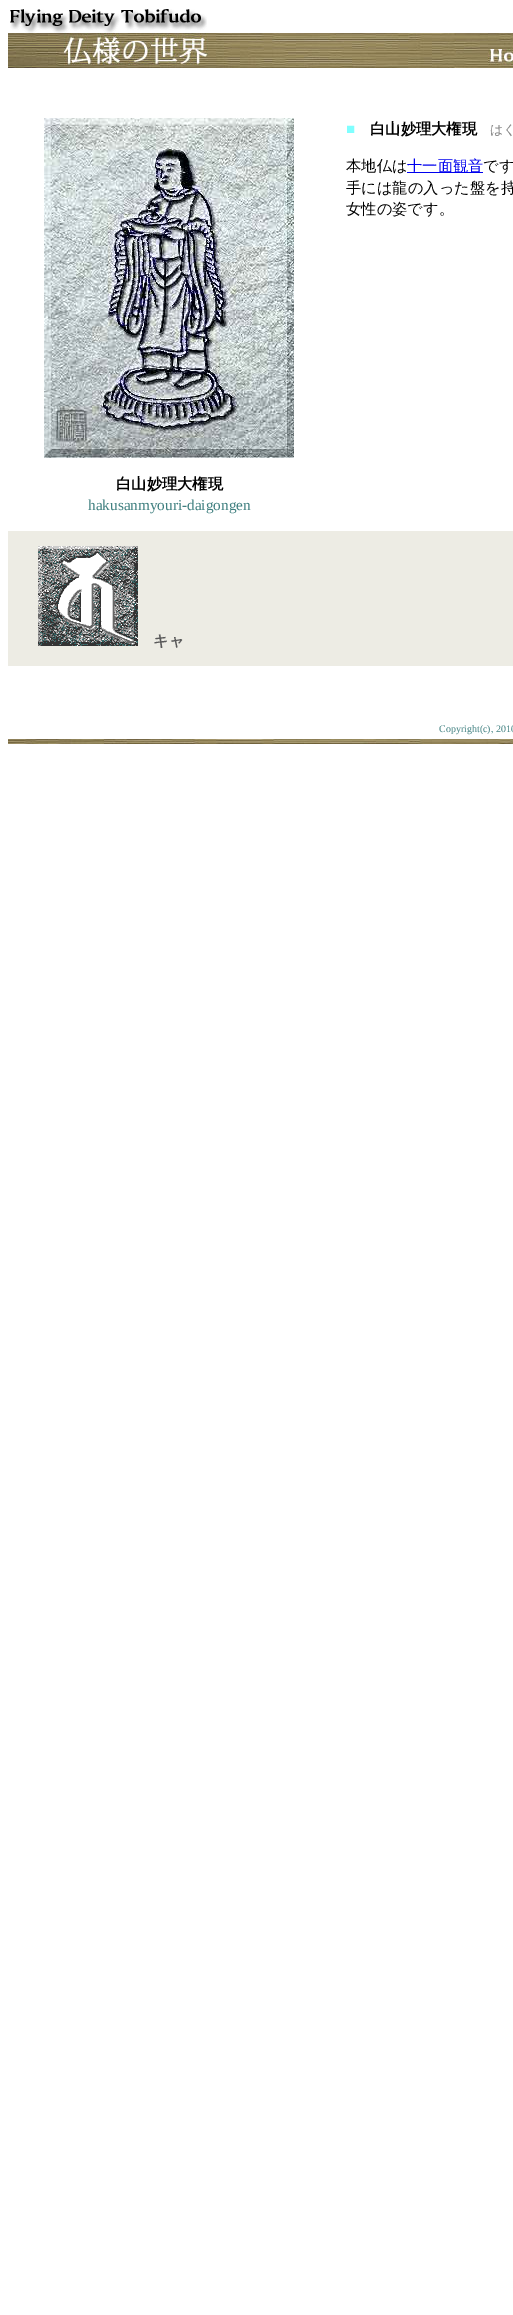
%!PS
<< /PageSize [513 2315] >> setpagedevice
/C { dup -16 bitshift 255 div exch dup -8 bitshift 255 and 255 div exch 255 and 255 div setrgbcolor } def
/F { [ exch dup neg 0 0 3 -1 roll 0 0 ] selectfont } def
/T { moveto show } def
/R { rectfill } def
/I { 5 dict begin { /h /w /y /x /name } { exch def } forall
  gsave x y translate w h scale
  w h 8 [w 0 0 h 0 0] name (r) file false 3 colorimage grestore end } def
0 2315 translate 1 -1 scale
4 setmiterlimit
16#FFFFFF C
0 0 513 2315 R
(1.rgb) 10 9 197 24 I
(2.rgb) 8 33 505 35 I
/LiberationSerif-Regular 15.25 F
16#80FFFF C
(■) 346 134 T
/WenQuanYiZenHei-Bold 15.25 F
16#000000 C
(白山妙理大権現) 370 134 T
/WenQuanYiZenHei-Medium 13 F
16#808080 C
(はく) 490 134 T
/WenQuanYiZenHei-Medium 15.25 F
16#000000 C
(本地仏は) 346 171 T
16#0000EE C
407 172 76 1 R
(十一面観音) 407 171 T
16#000000 C
(です) 483 171 T
(手には龍の入った盤を持) 346 193 T
(女性の姿です。) 346 214 T
(3.rgb) 44 118 250 340 I
/WenQuanYiZenHei-Bold 15.25 F
(白山妙理大権現) 116 489 T
/LiberationSerif-Regular 15.25 F
16#408080 C
(hakusanmyouri-daigongen) 88 510 T
16#EDECE4 C
8 531 505 135 R
(4.rgb) 38 546 100 100 I
/WenQuanYiZenHei-Bold 15.25 F
16#5A5A5A C
(キャ) 153 646 T
/LiberationSerif-Regular 10 F
16#408080 C
(Copyright\(c\), 2010) 439 732 T
(5.rgb) 8 739 505 5 I
showpage
